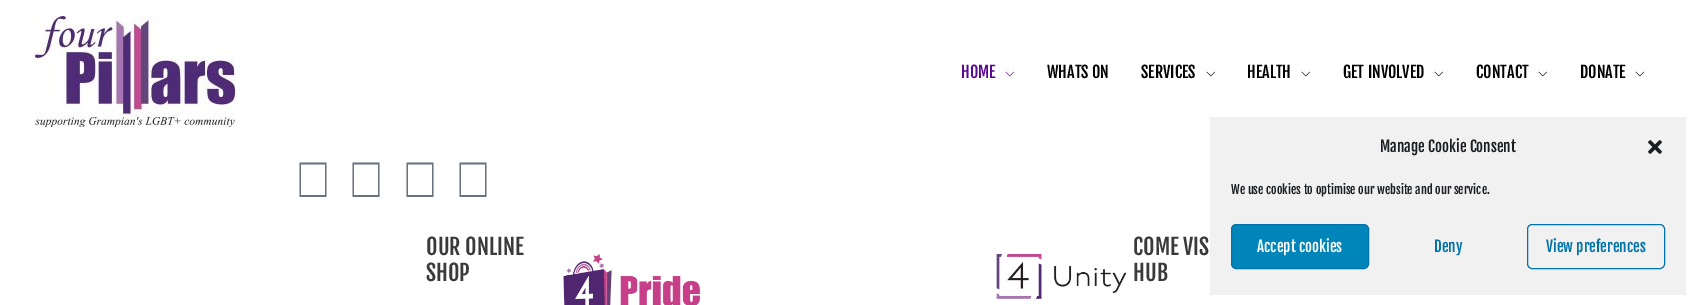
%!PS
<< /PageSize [1696 305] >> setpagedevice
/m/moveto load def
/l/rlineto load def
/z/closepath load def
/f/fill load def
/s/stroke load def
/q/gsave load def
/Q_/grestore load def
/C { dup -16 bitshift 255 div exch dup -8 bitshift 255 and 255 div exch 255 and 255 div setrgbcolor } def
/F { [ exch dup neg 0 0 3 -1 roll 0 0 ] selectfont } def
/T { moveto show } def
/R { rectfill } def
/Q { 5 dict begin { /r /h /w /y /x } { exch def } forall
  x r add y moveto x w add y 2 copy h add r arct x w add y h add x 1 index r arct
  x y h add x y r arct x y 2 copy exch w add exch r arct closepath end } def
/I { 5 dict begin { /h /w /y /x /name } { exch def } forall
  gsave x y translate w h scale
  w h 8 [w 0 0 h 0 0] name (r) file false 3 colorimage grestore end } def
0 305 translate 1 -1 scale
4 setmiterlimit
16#FFFFFF C
0 0 1696 305 R
(1.rgb) 35 16 200 111 I
/FjallaOne-Regular 16 F
16#5B0992 C
(HOME) 961 78 T
(2.rgb) 1005 71 9 6 I
16#000000 C
(WHATS ON) 1047 78 T
(SERVICES) 1141 78 T
(3.rgb) 1206 71 9 6 I
(HEALTH) 1247 78 T
(3.rgb) 1301 71 9 6 I
(GET INVOLVED) 1343 78 T
(3.rgb) 1434 71 9 6 I
(CONTACT) 1476 78 T
(3.rgb) 1538 71 9 6 I
(DONATE) 1580 78 T
(3.rgb) 1635 71 9 6 I
16#69727D C
299.5 162.5 m 27 0 l 0 34.5 l -27 0 l z 301 164.5 m 0 30.5 l 24 0 l 0 -30.5 l z f
352.5 162.5 m 27 0 l 0 34.5 l -27 0 l z 354 164.5 m 0 30.5 l 24 0 l 0 -30.5 l z f
406.5 162.5 m 27 0 l 0 34.5 l -27 0 l z 408 164.5 m 0 30.5 l 24 0 l 0 -30.5 l z f
459.5 162.5 m 27 0 l 0 34.5 l -27 0 l z 461 164.5 m 0 30.5 l 24 0 l 0 -30.5 l z f
/FjallaOne-Regular 22 F
16#3A3A3A C
(OUR ONLINE) 426 255 T
(SHOP) 426 281 T
(4.rgb) 563 254 137 51 I
(5.rgb) 996 254 131 45 I
(COME VIS) 1133 255 T
(HUB) 1133 281 T
16#F1F1F1 C
1210 117 476 178 R
/FjallaOne-Regular 15 F
16#191E23 C
(Manage Cookie Consent) 1380 152 T
(6.rgb) 1648 140 14 14 I
/FjallaOne-Regular 12 F
(We use cookies to optimise our website and our service.) 1231 194 T
16#0085BA C
1231.5 224.5 137 44 4.5 Q q f Q_
16#0073AA C
s
/FjallaOne-Regular 15 F
16#FFFFFF C
(Accept cookies) 1257 252 T
16#0073AA C
(Deny) 1434 252 T
1527.5 224.5 137 44 4.5 Q s
(View preferences) 1546 252 T
showpage
